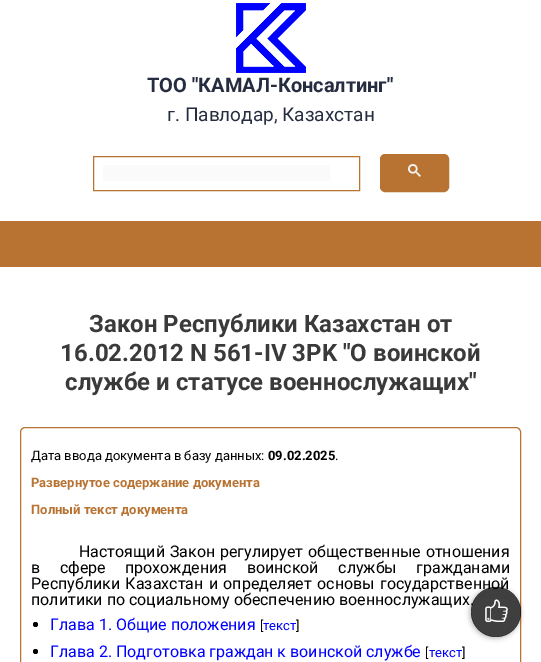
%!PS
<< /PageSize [541 662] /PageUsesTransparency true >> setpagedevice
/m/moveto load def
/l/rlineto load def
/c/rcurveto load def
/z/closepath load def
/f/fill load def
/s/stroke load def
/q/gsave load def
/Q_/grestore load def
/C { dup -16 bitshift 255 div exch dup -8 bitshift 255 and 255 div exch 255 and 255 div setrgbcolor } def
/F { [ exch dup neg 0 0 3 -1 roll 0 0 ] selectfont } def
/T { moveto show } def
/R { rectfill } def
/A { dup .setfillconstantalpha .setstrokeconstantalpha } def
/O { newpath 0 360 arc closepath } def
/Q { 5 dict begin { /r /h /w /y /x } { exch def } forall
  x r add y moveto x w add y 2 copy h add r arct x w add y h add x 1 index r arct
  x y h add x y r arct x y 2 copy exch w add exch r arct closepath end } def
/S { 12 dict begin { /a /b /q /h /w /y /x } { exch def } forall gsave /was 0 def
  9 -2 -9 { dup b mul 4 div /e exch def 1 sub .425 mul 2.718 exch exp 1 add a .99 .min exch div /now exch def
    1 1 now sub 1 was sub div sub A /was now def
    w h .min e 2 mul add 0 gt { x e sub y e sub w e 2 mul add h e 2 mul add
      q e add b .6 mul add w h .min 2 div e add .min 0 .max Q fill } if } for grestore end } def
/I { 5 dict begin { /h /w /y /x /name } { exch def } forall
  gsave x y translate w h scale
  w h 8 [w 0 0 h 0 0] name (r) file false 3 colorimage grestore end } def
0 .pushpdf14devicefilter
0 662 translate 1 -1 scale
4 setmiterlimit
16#FFFFFF C
0 0 541 662 R
(1.rgb) 236 3 70 70 I
/Roboto-Bold 20 F
16#262D40 C
(ТОО "КАМАЛ-Консалтинг") 147 92 T
/Roboto-Regular 19 F
(г. Павлодар, Казахстан) 167 121 T
16#B87333 C
93.5 156.5 266 34 rectstroke
16#FAFAFA C
103 165 227 16 2 Q f
16#B87333 C
380.5 154.5 68 37 4.5 Q q f Q_
s
(2.rgb) 408 164 13 13 I
0 221 541 46 R
20.5 427.5 500 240 4.5 Q s
q
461 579 m 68 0 l 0 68 l -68 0 l z 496 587 m 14 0 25 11 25 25 c 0 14 -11 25 -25 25 c -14 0 -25 -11 -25 -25 c 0 -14 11 -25 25 -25 c z eoclip newpath
16#000000 C
470 588 50 50 25 2.5 .15 S
Q_
/Roboto-Regular 16 F
16#000000 C
31 589 m 1.5 0 32 (Республики Казахстан и определяет основы государственной) widthshow
(политики по социальному обеспечению военнослужащих.) 31 605 T
0.5 A
496 612 25 O f
1 A
(3.rgb) 485 599 23 23 I
/Roboto-Bold 24 F
16#3A3A3A C
(Закон Республики Казахстан от) 89 332 T
(16.02.2012 N 561-IV 3PK "О воинской) 60 361 T
(службе и статусе военнослужащих") 65 390 T
/Roboto-Regular 13 F
16#000000 C
(Дата ввода документа в базу данных:) 31 460 T
/Roboto-Bold 13 F
(09.02.2025) 268 460 T
/Roboto-Regular 13 F
(.) 335 460 T
/Roboto-Bold 13 F
16#B87333 C
(Развернутое содержание документа) 31 487 T
(Полный текст документа) 31 514 T
/Roboto-Regular 16 F
16#000000 C
79 557 m 1 0 32 (Настоящий Закон регулирует общественные отношения) widthshow
31 573 m 15.5 0 32 (в сфере прохождения воинской службы гражданами) widthshow
35.5 624.5 2.5 O f
16#0000FF C
(Глава 1. Общие положения) 50 630 T
/Roboto-Regular 13 F
16#000000 C
([) 260 630 T
16#0000FF C
(текст) 263 630 T
16#000000 C
(]) 296 630 T
35.5 651.5 2.5 O f
/Roboto-Regular 16 F
16#0000FF C
(Глава 2. Подготовка граждан к воинской службе) 50 657 T
/Roboto-Regular 13 F
16#000000 C
([) 425 657 T
16#0000FF C
(текст) 429 657 T
16#000000 C
(]) 462 657 T
q
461 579 m 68 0 l 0 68 l -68 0 l z 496 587 m 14 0 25 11 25 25 c 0 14 -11 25 -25 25 c -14 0 -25 -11 -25 -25 c 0 -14 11 -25 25 -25 c z eoclip newpath
470 588 50 50 25 2.5 .15 S
Q_
0.5 A
496 612 25 O f
1 A
(4.rgb) 485 599 23 23 I
.poppdf14devicefilter showpage
